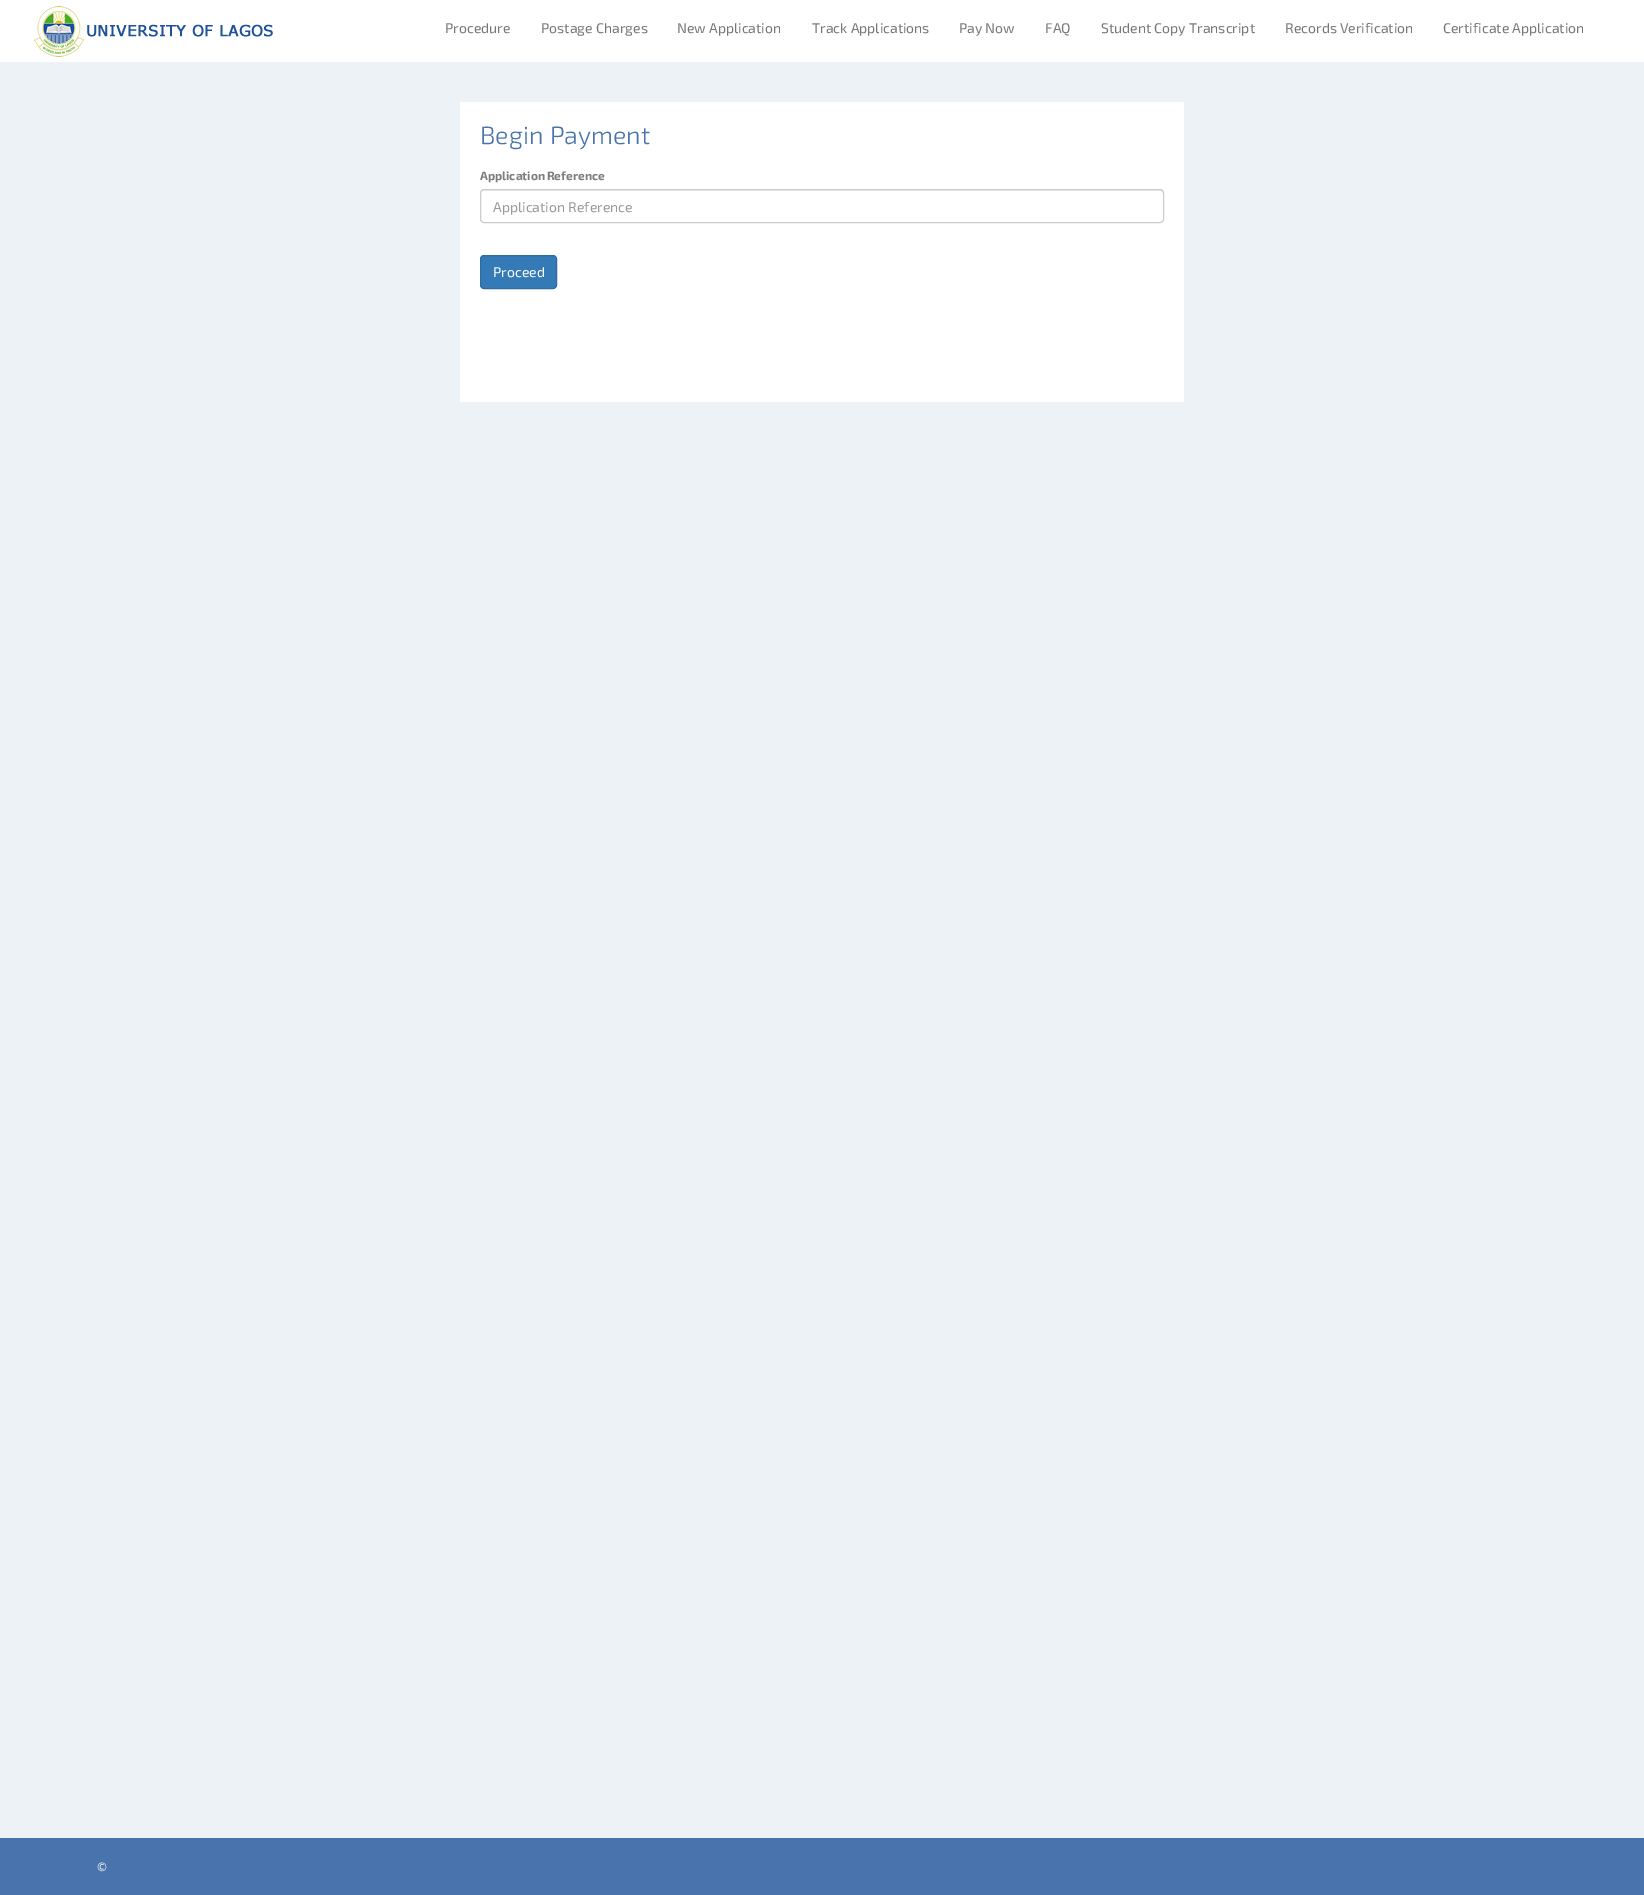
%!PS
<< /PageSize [1644 1895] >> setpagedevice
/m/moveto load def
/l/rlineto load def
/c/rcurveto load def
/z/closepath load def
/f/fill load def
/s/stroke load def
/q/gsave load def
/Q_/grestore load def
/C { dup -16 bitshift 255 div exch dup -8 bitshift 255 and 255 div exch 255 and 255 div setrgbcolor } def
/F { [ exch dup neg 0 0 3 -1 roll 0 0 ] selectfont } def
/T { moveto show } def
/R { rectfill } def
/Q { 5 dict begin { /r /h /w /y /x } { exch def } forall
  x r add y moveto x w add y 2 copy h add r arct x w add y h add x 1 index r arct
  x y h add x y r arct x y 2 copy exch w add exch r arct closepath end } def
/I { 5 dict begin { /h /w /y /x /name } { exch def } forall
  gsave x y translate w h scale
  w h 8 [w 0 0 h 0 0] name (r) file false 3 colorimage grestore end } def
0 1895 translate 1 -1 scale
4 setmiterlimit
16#FFFFFF C
0 0 1644 1895 R
(1.rgb) 34 6 239 51 I
/Exo2-Regular 14 F
16#777777 C
(Procedure) 445 33 T
(Postage Charges) 541 33 T
(New Application) 677 33 T
(Track Applications) 812 33 T
(Pay Now) 959 33 T
(FAQ) 1045 33 T
(Student Copy Transcript) 1101 33 T
(Records Verification) 1285 33 T
(Certificate Application) 1443 33 T
16#EDF2F6 C
0 62 1644 1776 R
16#FFFFFF C
460 102 724 300 R
/Exo2-Light 25 F
16#4973AC C
480 144 m 1 0 32 (Begin Payment) widthshow
/Exo2-Bold 12 F
16#7D7D7D C
480 180 m -1 0 32 (Application Reference) widthshow
16#ECECEC C
484 191 m 676 0 l 2 0 3 1 3 3 c 0 -1 l 0 -2 -1 -3 -3 -3 c -676 0 l -2 0 -3 1 -3 3 c 0 1 l 0 -2 1 -3 3 -3 c z f
16#CCCCCC C
480.5 189.5 683 33 3.5 Q s
/Exo2-Regular 14 F
16#999999 C
(Application Reference) 493 212 T
16#337AB7 C
480.5 255.5 76 33 3.5 Q q f Q_
16#2E6DA4 C
s
16#FFFFFF C
(Proceed) 493 277 T
16#4973AC C
0 1838 1644 57 R
/Exo2-Regular 12 F
16#FFFFFF C
(©) 97 1871 T
showpage
